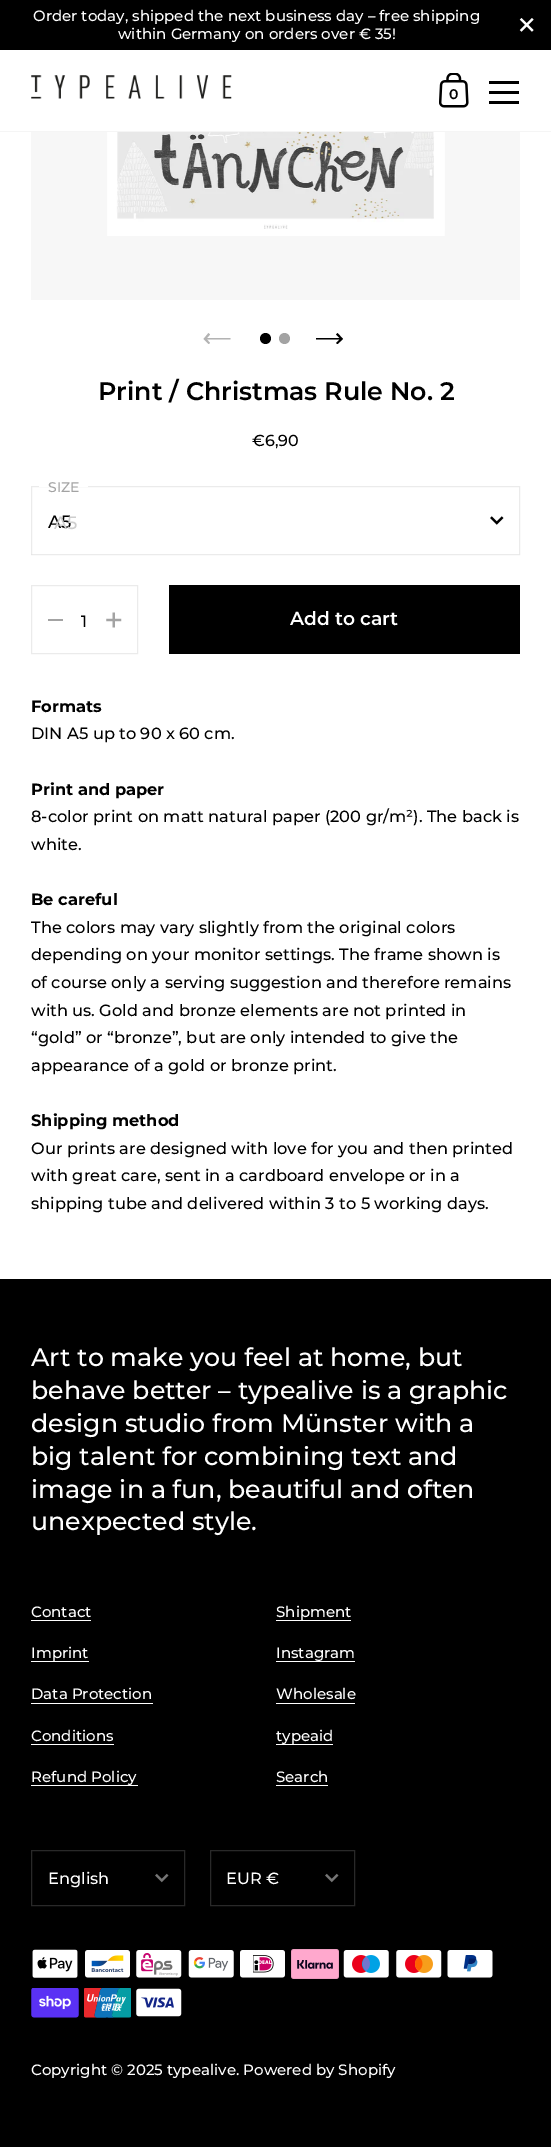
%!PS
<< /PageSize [551 2147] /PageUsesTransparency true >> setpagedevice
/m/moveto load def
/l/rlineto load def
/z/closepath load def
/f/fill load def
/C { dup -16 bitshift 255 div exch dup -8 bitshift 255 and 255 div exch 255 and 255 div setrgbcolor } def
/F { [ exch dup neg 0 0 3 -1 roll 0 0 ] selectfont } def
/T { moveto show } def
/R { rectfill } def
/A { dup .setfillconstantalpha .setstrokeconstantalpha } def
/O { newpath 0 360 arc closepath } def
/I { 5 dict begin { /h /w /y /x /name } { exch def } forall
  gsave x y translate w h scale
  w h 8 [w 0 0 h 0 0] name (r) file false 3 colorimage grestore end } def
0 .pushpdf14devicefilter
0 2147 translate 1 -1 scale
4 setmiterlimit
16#FFFFFF C
0 0 551 2147 R
16#000000 C
0 0 551 50 R
/Montserrat-Medium 15 F
16#FFFFFF C
(Order today, shipped the next business day – free shipping) 33 21 T
(within Germany on orders over € 35!) 118 39 T
(1.rgb) 519 18 15 14 I
16#F5F5F5 C
0 131 551 1 R
(2.rgb) 31 75 201 24 I
(3.rgb) 439 73 30 35 I
/Montserrat-SemiBold 14 F
16#000000 C
(0) 449 99 T
489 81 30 3 R
489 91 30 3 R
489 101 30 3 R
16#F7F7F7 C
31 132 489 168 R
(4.rgb) 107 132 338 104 I
16#B3B3B3 C
208.5 344 m 1.5 -1 l -3 -3.5 l 23.5 0 l 0 -1.5 l -23.5 0 l 3 -3.5 l -1.5 -1.5 l -5 6 l z f
16#000000 C
265.5 338.5 5.5 O f
16#A3A3A3 C
284.5 338.5 5.5 O f
16#000000 C
337.5 333 m -1.5 1.5 l 3.5 3.5 l -23.5 0 l 0 1.5 l 23.5 0 l -3.5 3.5 l 1.5 1 l 5.5 -5 l z f
/Montserrat-SemiBold 25.25 F
(Print / Christmas Rule No. 2) 98 400 T
/Montserrat-Medium 16 F
(€6,90) 252 446 T
16#EBEBEB C
31.5 486.5 488 68 rectstroke
16#FFFFFF C
39 486 49 1 R
/Montserrat-Medium 14 F
16#A3A3A3 C
(SIZE) 48 492 T
/Montserrat-Medium 18 F
16#000000 C
(A5) 48 528 T
16#CECECE C
(A5) 54 529 T
(5.rgb) 490 516 14 9 I
16#FFFFFF C
31 554 489 1 R
16#EBEBEB C
520 554 m 0 1 l -1 -1 l z f
0.08 A
16#000000 C
520 555 m -489 0 l 1 -1 l 487 0 l z f
1 A
16#E1E1E1 C
31 555 m 0 -1 l 1.5 0 l z f
16#EBEBEB C
31.5 585.5 106 68 rectstroke
16#A3A3A3 C
48 619 15 2 R
/Montserrat-Medium 16.25 F
16#000000 C
(1) 81 627 T
(6.rgb) 106 612 16 16 I
169 585 351 69 R
/Montserrat-SemiBold 18.75 F
16#FFFFFF C
(Add to cart) 290 625 T
/Montserrat-Bold 16.25 F
16#000000 C
(Formats) 31 712 T
/Montserrat-Medium 16.25 F
(DIN A5 up to 90 x 60 cm.) 31 739 T
/Montserrat-Bold 16.25 F
(Print and paper) 31 795 T
/Montserrat-Medium 16.25 F
(8-color print on matt natural paper \(200 gr/m²\). The back is) 31 822 T
(white.) 31 850 T
/Montserrat-Bold 16.25 F
(Be careful) 31 905 T
/Montserrat-Medium 16.25 F
(The colors may vary slightly from the original colors) 31 933 T
(depending on your monitor settings. The frame shown is) 31 960 T
(of course only a serving suggestion and therefore remains) 31 988 T
(with us. Gold and bronze elements are not printed in) 31 1016 T
(“gold” or “bronze”, but are only intended to give the) 31 1043 T
(appearance of a gold or bronze print.) 31 1071 T
/Montserrat-Bold 16.25 F
(Shipping method) 31 1126 T
/Montserrat-Medium 16.25 F
(Our prints are designed with love for you and then printed) 31 1154 T
(with great care, sent in a cardboard envelope or in a) 31 1181 T
(shipping tube and delivered within 3 to 5 working days.) 31 1209 T
0 1279 551 868 R
/Montserrat-Medium 25.25 F
16#FFFFFF C
(Art to make you feel at home, but) 31 1366 T
(behave better – typealive is a graphic) 31 1399 T
(design studio from Münster with a) 31 1432 T
(big talent for combining text and) 31 1465 T
(image in a fun, beautiful and often) 31 1498 T
(unexpected style.) 31 1530 T
/Montserrat-Medium 15 F
(Contact) 31 1617 T
31 1620 60 1 R
(Imprint) 31 1658 T
31 1661 58 1 R
(Data Protection) 31 1699 T
31 1703 122 1 R
(Conditions) 31 1741 T
31 1744 83 1 R
(Refund Policy) 31 1782 T
31 1785 107 1 R
(Shipment) 276 1617 T
276 1620 75 1 R
(Instagram) 276 1658 T
276 1661 79 1 R
(Wholesale) 276 1699 T
276 1703 79 1 R
(typeaid) 276 1741 T
276 1744 57 1 R
(Search) 276 1782 T
276 1785 52 1 R
16#292929 C
31.5 1850.5 153 55 rectstroke
/Montserrat-Medium 16.25 F
16#FFFFFF C
(English) 48 1884 T
(7.rgb) 155 1873 14 10 I
16#292929 C
210.5 1850.5 144 55 rectstroke
16#FFFFFF C
(EUR €) 226 1884 T
(7.rgb) 325 1873 14 10 I
(8.rgb) 32 1949 46 29 I
(9.rgb) 85 1950 45 28 I
(10.rgb) 136 1950 46 28 I
(11.rgb) 188 1950 46 28 I
(12.rgb) 240 1950 45 28 I
(13.rgb) 291 1949 48 30 I
(14.rgb) 343 1950 46 28 I
(15.rgb) 396 1950 46 28 I
(16.rgb) 447 1950 46 28 I
(17.rgb) 31 1988 48 30 I
(18.rgb) 84 1988 47 30 I
(19.rgb) 136 1988 46 29 I
/Montserrat-Medium 15 F
(Copyright © 2025 typealive. Powered by Shopify) 31 2075 T
.poppdf14devicefilter showpage
